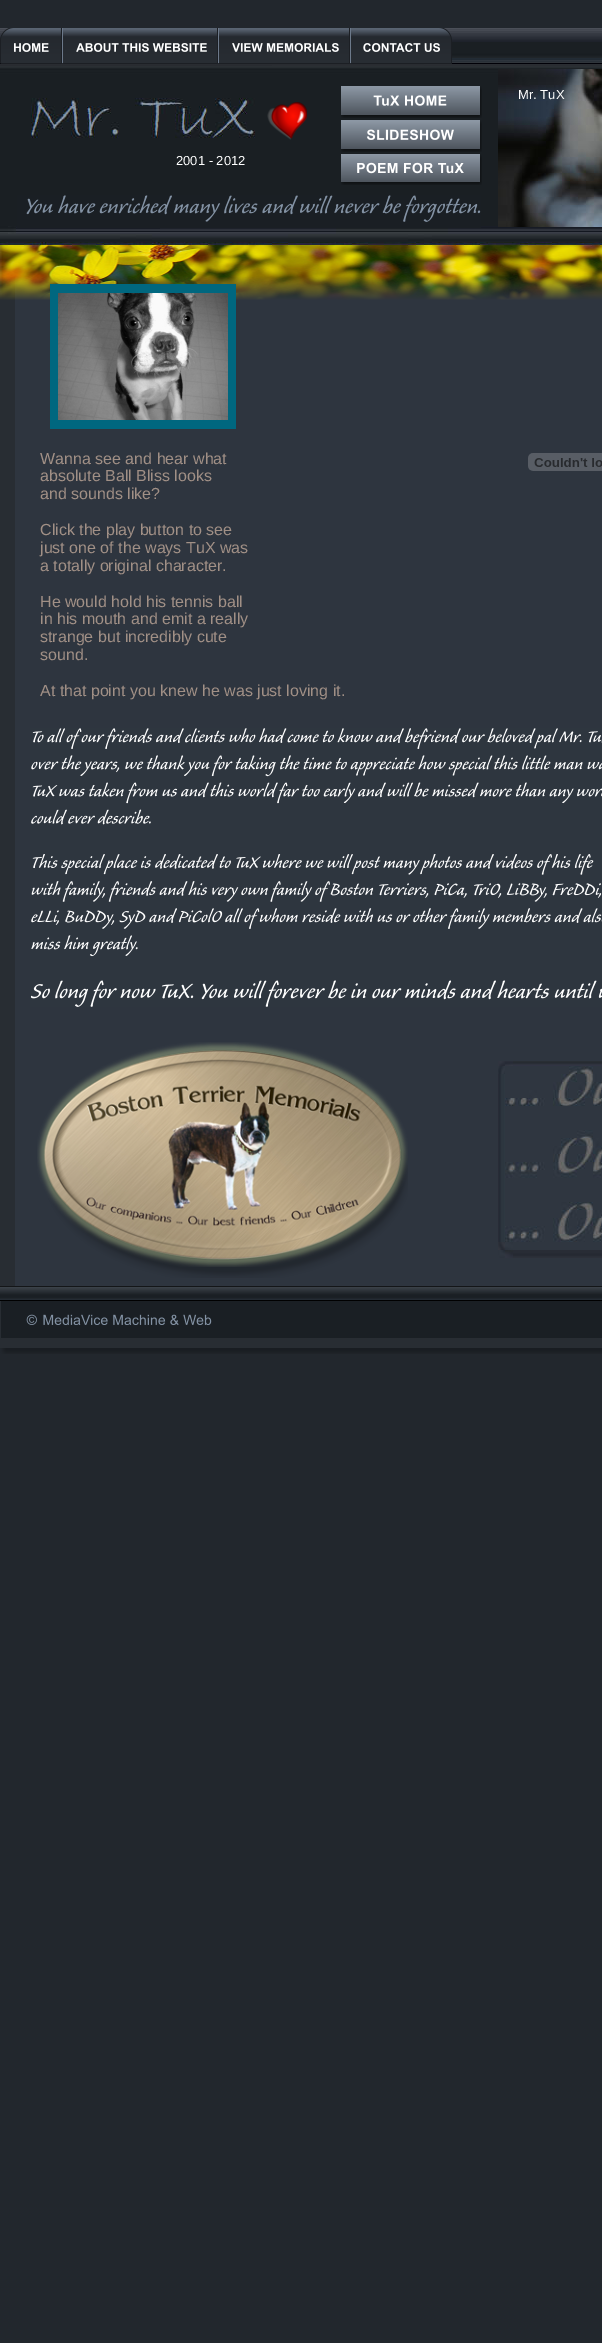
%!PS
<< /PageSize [602 2343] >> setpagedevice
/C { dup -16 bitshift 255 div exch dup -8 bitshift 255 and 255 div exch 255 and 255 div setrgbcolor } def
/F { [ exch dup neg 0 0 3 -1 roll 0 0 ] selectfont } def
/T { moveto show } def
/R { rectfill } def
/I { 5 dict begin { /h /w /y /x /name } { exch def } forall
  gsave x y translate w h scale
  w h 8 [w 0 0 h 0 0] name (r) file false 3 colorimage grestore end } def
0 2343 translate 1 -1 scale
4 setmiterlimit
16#22272D C
0 0 602 2343 R
(1.rgb) 0 28 602 218 I
(2.rgb) 0 28 62 36 I
(3.rgb) 62 28 156 36 I
(4.rgb) 218 28 132 36 I
(5.rgb) 350 28 102 36 I
(6.rgb) 341 86 141 32 I
(7.rgb) 498 69 104 158 I
/LiberationSans-Regular 13 F
16#FFFFFF C
(Mr. TuX) 518 99 T
(8.rgb) 31 98 224 40 I
(9.rgb) 267 102 40 38 I
(10.rgb) 341 120 141 32 I
(2001 - 2012) 176 165 T
(11.rgb) 341 154 141 31 I
(12.rgb) 17 195 464 33 I
(20.rgb) 0 276 602 1078 I
16#2E353F C
15 276 587 1010 R
(13.rgb) 0 246 602 54 I
16#00677F C
50 284 186 145 R
(14.rgb) 58 293 170 127 I
/LiberationSans-Regular 16 F
16#A19086 C
(Wanna see and hear what) 40 464 T
(absolute Ball Bliss looks) 40 481 T
(and sounds like?) 40 499 T
(Click the play button to see) 40 535 T
(just one of the ways TuX was) 40 553 T
(a totally original character.) 40 571 T
(He would hold his tennis ball) 40 607 T
(in his mouth and emit a really) 40 624 T
(strange but incredibly cute) 40 642 T
(sound.) 40 660 T
(At that point you knew he was just loving it.) 40 696 T
(15.rgb) 528 453 74 18 I
(16.rgb) 30 728 572 279 I
(17.rgb) 37 1042 371 236 I
(18.rgb) 498 1061 104 197 I
(19.rgb) 0 1286 602 52 I
showpage
